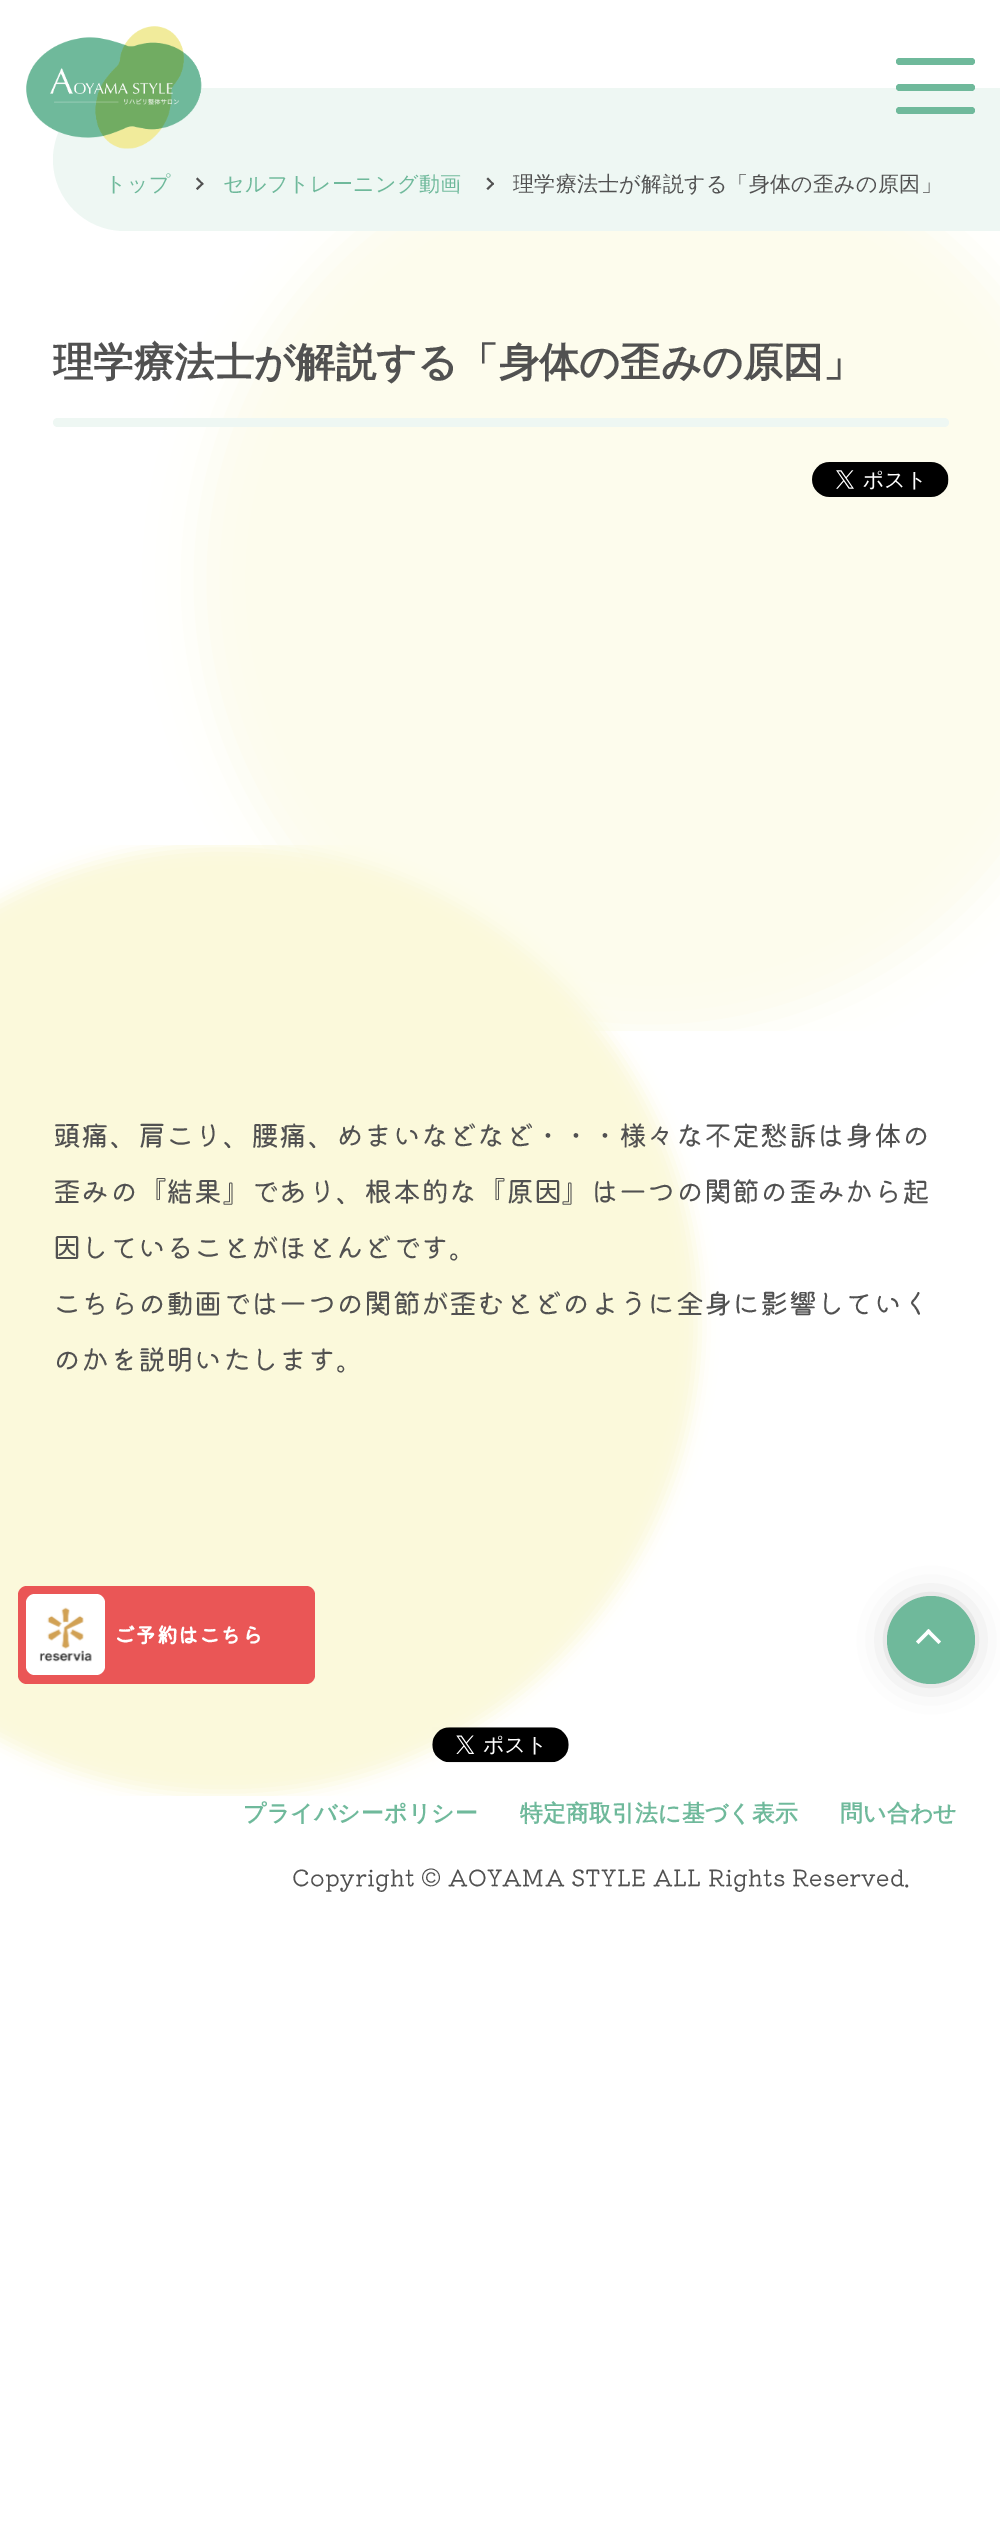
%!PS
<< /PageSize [1000 2539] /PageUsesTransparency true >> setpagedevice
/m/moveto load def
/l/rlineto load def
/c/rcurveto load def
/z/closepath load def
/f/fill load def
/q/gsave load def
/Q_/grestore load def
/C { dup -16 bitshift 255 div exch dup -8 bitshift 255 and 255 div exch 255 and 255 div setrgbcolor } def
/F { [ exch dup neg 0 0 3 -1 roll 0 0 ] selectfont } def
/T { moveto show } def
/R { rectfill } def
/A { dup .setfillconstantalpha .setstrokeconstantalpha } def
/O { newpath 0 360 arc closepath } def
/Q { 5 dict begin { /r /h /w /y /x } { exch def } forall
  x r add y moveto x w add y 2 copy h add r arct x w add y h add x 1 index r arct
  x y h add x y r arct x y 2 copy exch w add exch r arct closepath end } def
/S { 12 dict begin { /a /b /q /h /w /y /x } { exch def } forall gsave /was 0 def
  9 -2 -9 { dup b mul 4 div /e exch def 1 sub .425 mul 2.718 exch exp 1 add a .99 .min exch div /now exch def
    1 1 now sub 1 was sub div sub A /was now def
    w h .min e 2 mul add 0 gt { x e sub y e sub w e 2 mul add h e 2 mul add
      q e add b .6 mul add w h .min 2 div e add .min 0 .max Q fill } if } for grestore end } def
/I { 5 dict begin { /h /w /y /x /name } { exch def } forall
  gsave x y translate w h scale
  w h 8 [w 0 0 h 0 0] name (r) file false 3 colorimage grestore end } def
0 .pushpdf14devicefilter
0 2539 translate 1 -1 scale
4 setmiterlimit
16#FFFFFF C
0 0 1000 2539 R
q
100 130 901 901 rectclip
16#FCFBEC C
200 130 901 901 450.5 26 1 S
Q_
16#EEF7F3 C
124.5 88 m 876.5 0 l 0 143 l -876.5 0 l -39.5 0 -71.5 -32 -71.5 -71.5 c 0 -39.5 32 -71.5 71.5 -71.5 c z f
(1.rgb) 26 26 176 123 I
16#6FB99B C
896 58 79 7 3.5 Q f
896 84 79 7 3.5 Q f
896 107 79 7 3.5 Q f
/WenQuanYiZenHei-Medium 21 F
105 191 m .3 0 (トップ) ashow
16#515151 C
197.5 177.5 m 6 6.5 l -1 1 l -6.5 -6 l z f
202.5 182.5 m 1 1.5 l -6 6 l -1.5 -1.5 l z f
16#6FB99B C
223 191 m .3 0 (セルフトレーニング動画) ashow
16#515151 C
488 177.5 m 6 6.5 l -1 1 l -6.5 -6 l z f
493 182.5 m 1 1.5 l -6 6 l -1.5 -1.5 l z f
513 191 m .3 0 (理学療法士が解説する「身体の歪みの原因」) ashow
/WenQuanYiZenHei-Bold 40.25 F
(理学療法士が解説する「身体の歪みの原因」) 53 376 T
16#EEF7F3 C
53 418 896 9 4.5 Q f
(2.rgb) 812 462 137 35 I
q
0 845 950 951 rectclip
16#FAF8DA C
-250 845 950 951 475 9 1 S
Q_
/KiwiMaru-Regular 28 F
16#515151 C
53 1146 m .3 0 (頭痛、肩こり、腰痛、めまいなどなど・・・様々な不定愁訴は身体の) ashow
53 1202 m .3 0 (歪みの『結果』であり、根本的な『原因』は一つの関節の歪みから起) ashow
53 1258 m .3 0 (因していることがほとんどです。) ashow
53 1314 m .3 0 (こちらの動画では一つの関節が歪むとどのように全身に影響していく) ashow
53 1370 m .3 0 (のかを説明いたします。) ashow
16#EA5656 C
18 1586 297 98 9 Q f
16#FFFFFF C
26 1594 79 81 9 Q f
(3.rgb) 39 1607 53 55 I
/KiwiMaru-Bold 21 F
114 1643 m .3 0 (ご予約はこちら) ashow
16#000000 C
896 1605 70 70 35 17.5 .3 S
16#6FB99B C
931 1640 44 O f
16#FFFFFF C
916 1641.5 m 12.5 -12.5 l 2.5 2.5 l -12.5 12.5 l z f
926 1631.5 m 2.5 -2.5 l 12.5 12.5 l -2.5 2.5 l z f
(4.rgb) 432 1727 137 36 I
/WenQuanYiZenHei-Bold 22.75 F
16#6FB99B C
243 1821 m .3 0 (プライバシーポリシー) ashow
520 1821 m .3 0 (特定商取引法に基づく表示) ashow
840 1821 m .3 0 (問い合わせ) ashow
/KiwiMaru-Regular 22.75 F
16#515151 C
292 1886 m .3 0 (Copyright © AOYAMA STYLE ALL Rights Reserved.) ashow
.poppdf14devicefilter showpage
